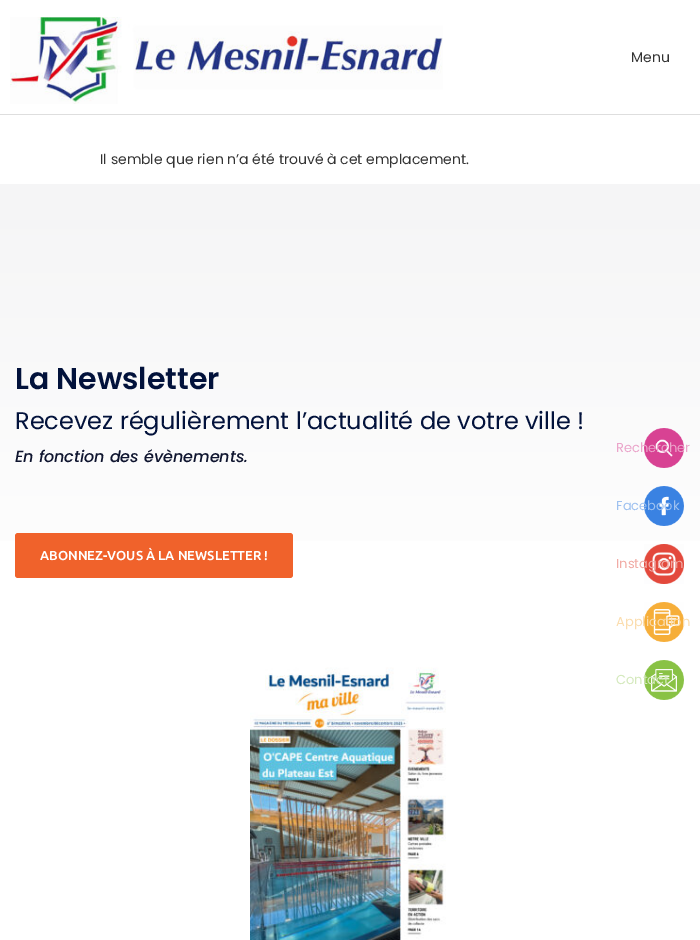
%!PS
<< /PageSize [700 940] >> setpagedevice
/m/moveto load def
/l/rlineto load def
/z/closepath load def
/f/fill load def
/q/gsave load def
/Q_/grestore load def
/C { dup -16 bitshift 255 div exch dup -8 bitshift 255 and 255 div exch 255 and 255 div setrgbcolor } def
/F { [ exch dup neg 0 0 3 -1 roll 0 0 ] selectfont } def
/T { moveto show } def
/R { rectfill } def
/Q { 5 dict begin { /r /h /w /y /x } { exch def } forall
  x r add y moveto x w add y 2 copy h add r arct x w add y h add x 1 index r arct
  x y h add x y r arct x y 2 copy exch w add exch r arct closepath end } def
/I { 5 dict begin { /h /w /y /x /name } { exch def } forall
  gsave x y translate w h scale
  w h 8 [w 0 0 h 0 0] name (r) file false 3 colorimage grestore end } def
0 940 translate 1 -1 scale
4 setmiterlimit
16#FFFFFF C
0 0 700 940 R
16#DEDEDE C
0 114 700 1 R
(1.rgb) 10 17 433 87 I
/Poppins-Regular 14 F
16#333333 C
(Menu) 631 62 T
(Il semble que rien n’a été trouvé à cet emplacement.) 100 164 T
q 0 184 m 700 0 l 0 357 l -700 0 l z clip newpath
<< /ShadingType 2 /ColorSpace /DeviceRGB /Coords [350 184 350 660] /Extend [true true] /Function << /FunctionType 2 /Domain [0 1] /C0 [.961 .961 .965] /C1 [1 1 1] /N 1 >> >> shfill Q_
/Poppins-SemiBold 30 F
16#02123B C
(La Newsletter) 15 389 T
/Poppins-Regular 24 F
(Recevez régulièrement l’actualité de votre ville !) 15 429 T
/Poppins-MediumItalic 16 F
16#0F152F C
(En fonction des évènements.) 15 462 T
16#F0622B C
15 533 278 45 3 Q f
/Ubuntu-Bold 13 F
16#FFFFFF C
(ABONNEZ-VOUS À LA NEWSLETTER !) 40 560 T
(2.rgb) 644 428 40 40 I
/Poppins-Regular 13 F
16#EBA4CA C
(Rechercher) 616 452 T
(3.rgb) 644 486 40 40 I
16#9EC1F0 C
(Facebook) 616 510 T
(4.rgb) 644 544 40 40 I
16#F1ABA5 C
(Instagram) 616 568 T
(5.rgb) 644 602 40 40 I
16#FBDDAE C
(Application) 616 626 T
(6.rgb) 644 660 40 40 I
16#D4E9BC C
(Contact) 616 684 T
(7.rgb) 250 667 196 273 I
showpage
